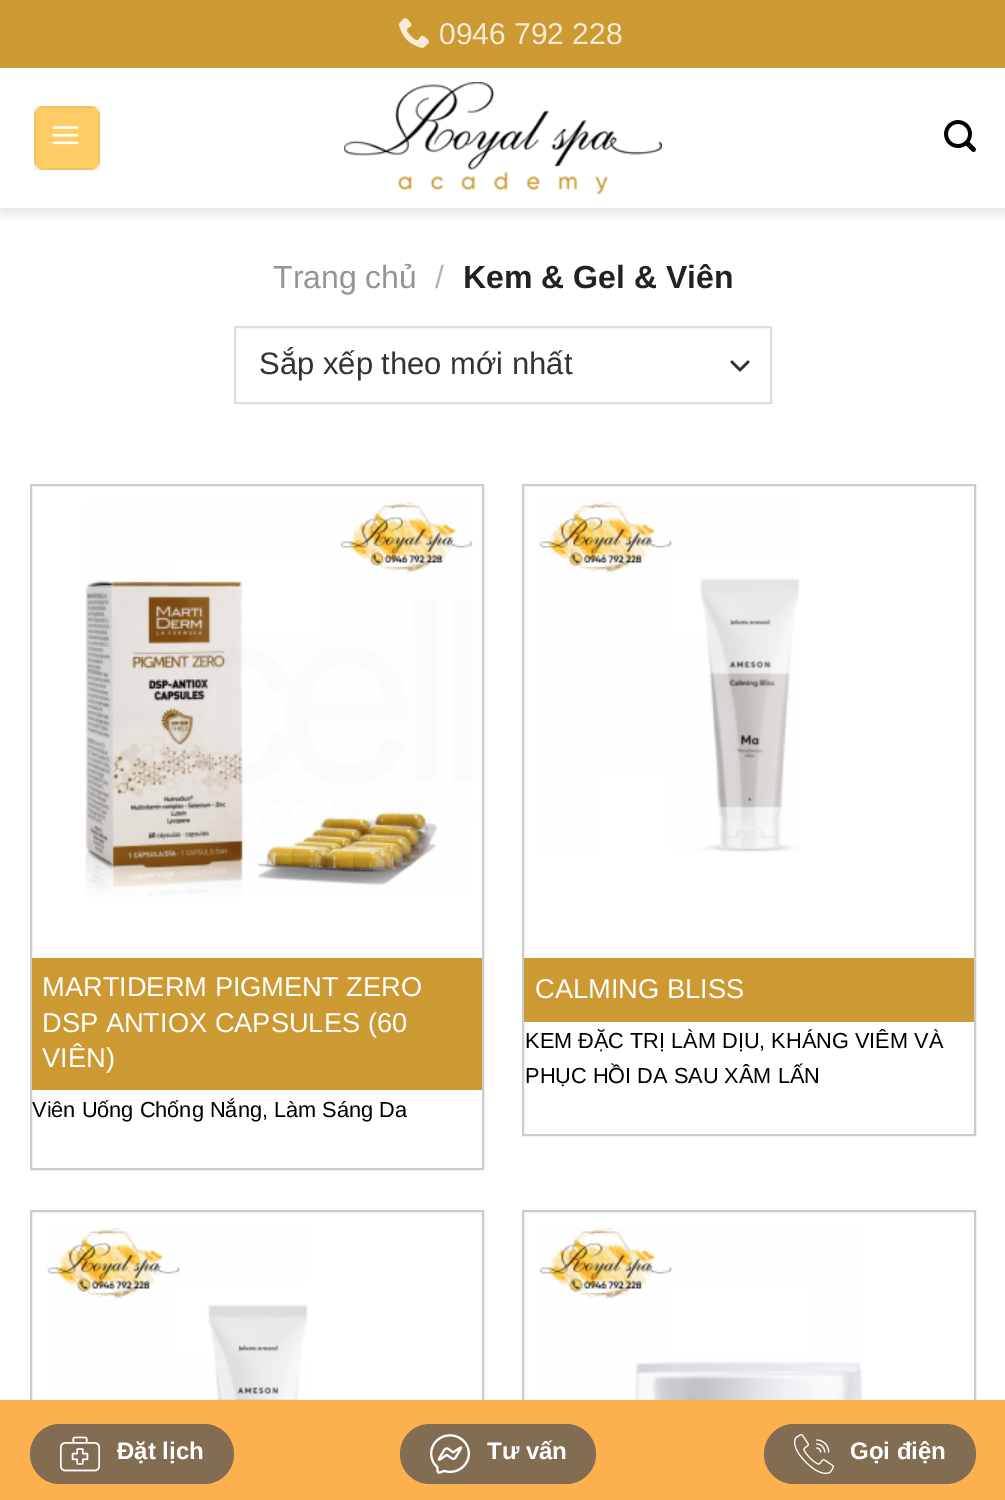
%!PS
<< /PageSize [1005 1500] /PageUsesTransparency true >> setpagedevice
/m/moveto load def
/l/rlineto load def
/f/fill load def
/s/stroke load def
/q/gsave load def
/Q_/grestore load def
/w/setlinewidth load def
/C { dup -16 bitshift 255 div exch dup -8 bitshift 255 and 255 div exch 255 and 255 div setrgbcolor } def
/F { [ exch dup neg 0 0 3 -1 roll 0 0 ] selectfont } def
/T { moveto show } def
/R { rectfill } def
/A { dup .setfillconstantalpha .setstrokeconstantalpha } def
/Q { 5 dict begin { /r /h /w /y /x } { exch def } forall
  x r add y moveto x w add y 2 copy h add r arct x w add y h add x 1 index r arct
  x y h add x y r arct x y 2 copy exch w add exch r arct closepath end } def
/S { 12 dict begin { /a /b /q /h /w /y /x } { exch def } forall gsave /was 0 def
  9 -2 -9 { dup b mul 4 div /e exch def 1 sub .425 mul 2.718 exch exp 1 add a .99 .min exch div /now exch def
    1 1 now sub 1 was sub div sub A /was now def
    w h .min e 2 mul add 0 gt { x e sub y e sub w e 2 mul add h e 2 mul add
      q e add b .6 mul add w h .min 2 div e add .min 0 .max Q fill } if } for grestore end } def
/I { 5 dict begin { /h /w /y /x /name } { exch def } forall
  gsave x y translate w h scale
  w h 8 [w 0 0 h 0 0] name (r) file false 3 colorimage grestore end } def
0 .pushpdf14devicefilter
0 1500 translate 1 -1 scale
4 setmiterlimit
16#FFFFFF C
0 0 1005 1500 R
q
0 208 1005 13 rectclip
16#000000 C
2 2 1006 208 0 10 .15 S
Q_
16#CC9933 C
0 0 1005 68 R
(1.rgb) 399 18 30 30 I
/LiberationSans-Regular 30 F
16#F5EBD6 C
(0946 792 228) 439 44 T
16#FFCC66 C
34 106 66 64 10 Q f
0.05 A
16#000000 C
2 w
35 107 64 62 rectstroke
1 A
(2.rgb) 52 126 27 19 I
(3.rgb) 344 82 318 112 I
(4.rgb) 944 120 32 32 I
/LiberationSans-Regular 32 F
16#949494 C
(Trang chủ) 273 288 T
16#B2B2B2 C
(/) 435 288 T
/LiberationSans-Bold 32 F
16#222222 C
(Kem & Gel & Viên) 463 288 T
16#333333 C
2.7 w
1 setlinecap
1 setlinejoin
732 362 m 8 8 l 8 -8 l s
16#DDDDDD C
2 w
0 setlinecap
0 setlinejoin
235 327 536 76 rectstroke
/LiberationSans-Regular 31 F
16#333333 C
(Sắp xếp theo mới nhất) 259 374 T
16#CCCCCC C
31 485 452 684 rectstroke
(5.rgb) 85 500 388 397 I
16#CC9933 C
32 958 450 132 R
/LiberationSans-Regular 27.25 F
16#FFFFFF C
(MARTIDERM PIGMENT ZERO) 42 996 T
(DSP ANTIOX CAPSULES \(60) 42 1032 T
(VIÊN\)) 42 1067 T
/LiberationSans-Regular 21.75 F
16#000000 C
(Viên Uống Chống Nắng, Làm Sáng Da) 32 1117 T
16#CCCCCC C
523 485 452 650 rectstroke
(6.rgb) 539 500 261 353 I
16#CC9933 C
524 958 450 64 R
/LiberationSans-Regular 27.25 F
16#FFFFFF C
(CALMING BLISS) 535 998 T
/LiberationSans-Regular 21.75 F
16#000000 C
(KEM ĐẶC TRỊ LÀM DỊU, KHÁNG VIÊM VÀ) 525 1048 T
(PHỤC HỒI DA SAU XÂM LẤN) 525 1083 T
16#CCCCCC C
31 1211 452 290 rectstroke
(7.rgb) 47 1226 261 174 I
523 1211 452 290 rectstroke
(8.rgb) 539 1226 325 174 I
16#FCB14E C
0 1400 1005 100 R
16#826D53 C
30 1424 204 60 30 Q f
(9.rgb) 60 1436 40 36 I
/LiberationSans-Bold 24 F
16#FFFFFF C
(Đặt lịch) 117 1459 T
16#826D53 C
400 1424 196 60 30 Q f
(10.rgb) 430 1434 40 40 I
16#FFFFFF C
(Tư vấn) 487 1459 T
16#826D53 C
764 1424 212 60 30 Q f
(11.rgb) 794 1434 40 40 I
16#FFFFFF C
(Gọi điện) 850 1459 T
.poppdf14devicefilter showpage
